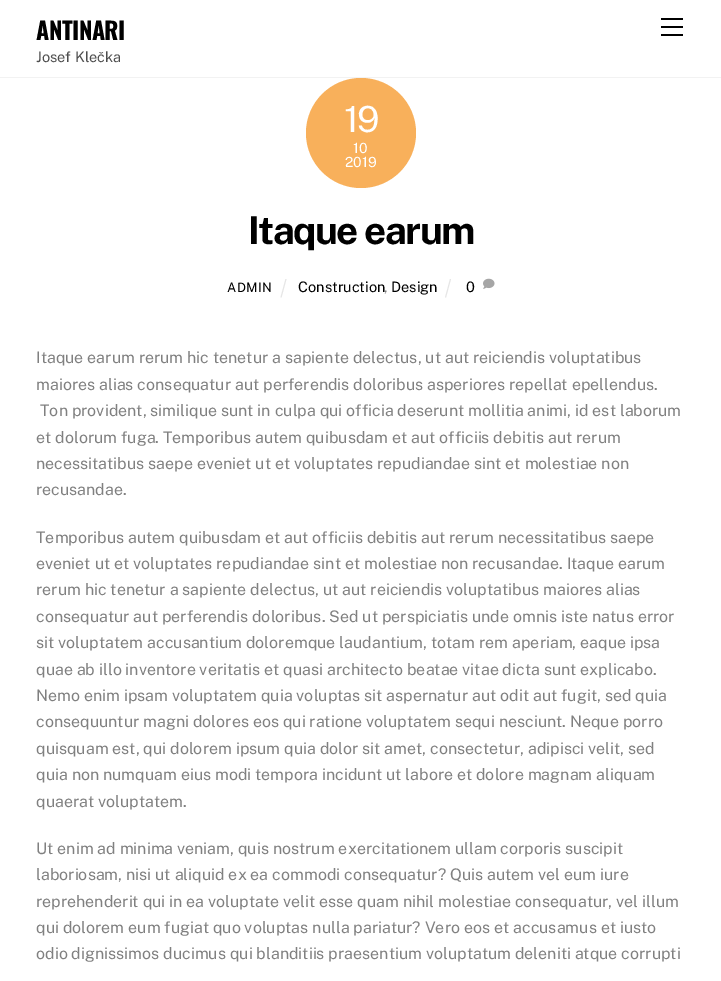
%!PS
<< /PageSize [721 981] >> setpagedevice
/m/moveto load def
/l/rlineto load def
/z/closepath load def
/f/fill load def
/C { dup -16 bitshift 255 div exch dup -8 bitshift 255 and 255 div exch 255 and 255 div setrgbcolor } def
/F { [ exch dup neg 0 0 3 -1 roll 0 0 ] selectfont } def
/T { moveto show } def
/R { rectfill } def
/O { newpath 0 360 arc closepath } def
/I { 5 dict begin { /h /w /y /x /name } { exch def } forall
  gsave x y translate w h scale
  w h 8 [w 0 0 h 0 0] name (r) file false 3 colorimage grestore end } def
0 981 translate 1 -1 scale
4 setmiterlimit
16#FFFFFF C
0 0 721 981 R
16#F2F2F2 C
0 77 721 1 R
/Oswald-Bold 24 F
16#000000 C
36 40 m -.5 0 (ANTINARI) ashow
/PublicSans-Regular 14.5 F
16#4D4D4D C
(Josef Klečka) 36 62 T
16#000000 C
661 34 22 2 R
661 18 22 2 R
661 26 22 2 R
16#F8B05B C
361 133 55 O f
/PublicSans-Regular 36 F
16#FFFFFF C
344 132 m -2 0 (19) ashow
/PublicSans-Regular 14 F
(10) 353 153 T
(2019) 345 167 T
/PublicSans-Bold 38.5 F
16#000000 C
248 244 m -1.5 0 (Itaque earum) ashow
/PublicSans-Regular 13 F
227 292 m .5 0 (ADMIN) ashow
16#E6E6E6 C
285.5 279 m 1 0 l -5 18.5 l -1 0 l z f
/PublicSans-Regular 14.5 F
16#000000 C
(Construction) 298 292 T
16#808080 C
(,) 384 292 T
16#000000 C
(Design) 391 292 T
16#E6E6E6 C
450 279 m 1 0 l -5 18.5 l -1 0 l z f
16#000000 C
(0) 466 292 T
(1.rgb) 483 278 12 11 I
/PublicSans-Regular 16 F
16#808080 C
(Itaque earum rerum hic tenetur a sapiente delectus, ut aut reiciendis voluptatibus) 36 363 T
(maiores alias consequatur aut perferendis doloribus asperiores repellat epellendus.) 36 390 T
(Ton provident, similique sunt in culpa qui officia deserunt mollitia animi, id est laborum) 40 416 T
(et dolorum fuga. Temporibus autem quibusdam et aut officiis debitis aut rerum) 36 443 T
(necessitatibus saepe eveniet ut et voluptates repudiandae sint et molestiae non) 36 469 T
(recusandae.) 36 495 T
(Temporibus autem quibusdam et aut officiis debitis aut rerum necessitatibus saepe) 36 543 T
(eveniet ut et voluptates repudiandae sint et molestiae non recusandae. Itaque earum) 36 569 T
(rerum hic tenetur a sapiente delectus, ut aut reiciendis voluptatibus maiores alias) 36 595 T
(consequatur aut perferendis doloribus. Sed ut perspiciatis unde omnis iste natus error) 36 622 T
(sit voluptatem accusantium doloremque laudantium, totam rem aperiam, eaque ipsa) 36 648 T
(quae ab illo inventore veritatis et quasi architecto beatae vitae dicta sunt explicabo.) 36 675 T
(Nemo enim ipsam voluptatem quia voluptas sit aspernatur aut odit aut fugit, sed quia) 36 701 T
(consequuntur magni dolores eos qui ratione voluptatem sequi nesciunt. Neque porro) 36 727 T
(quisquam est, qui dolorem ipsum quia dolor sit amet, consectetur, adipisci velit, sed) 36 754 T
(quia non numquam eius modi tempora incidunt ut labore et dolore magnam aliquam) 36 780 T
(quaerat voluptatem.) 36 807 T
(Ut enim ad minima veniam, quis nostrum exercitationem ullam corporis suscipit) 36 854 T
(laboriosam, nisi ut aliquid ex ea commodi consequatur? Quis autem vel eum iure) 36 880 T
(reprehenderit qui in ea voluptate velit esse quam nihil molestiae consequatur, vel illum) 36 907 T
(qui dolorem eum fugiat quo voluptas nulla pariatur? Vero eos et accusamus et iusto) 36 933 T
(odio dignissimos ducimus qui blanditiis praesentium voluptatum deleniti atque corrupti) 36 959 T
showpage
